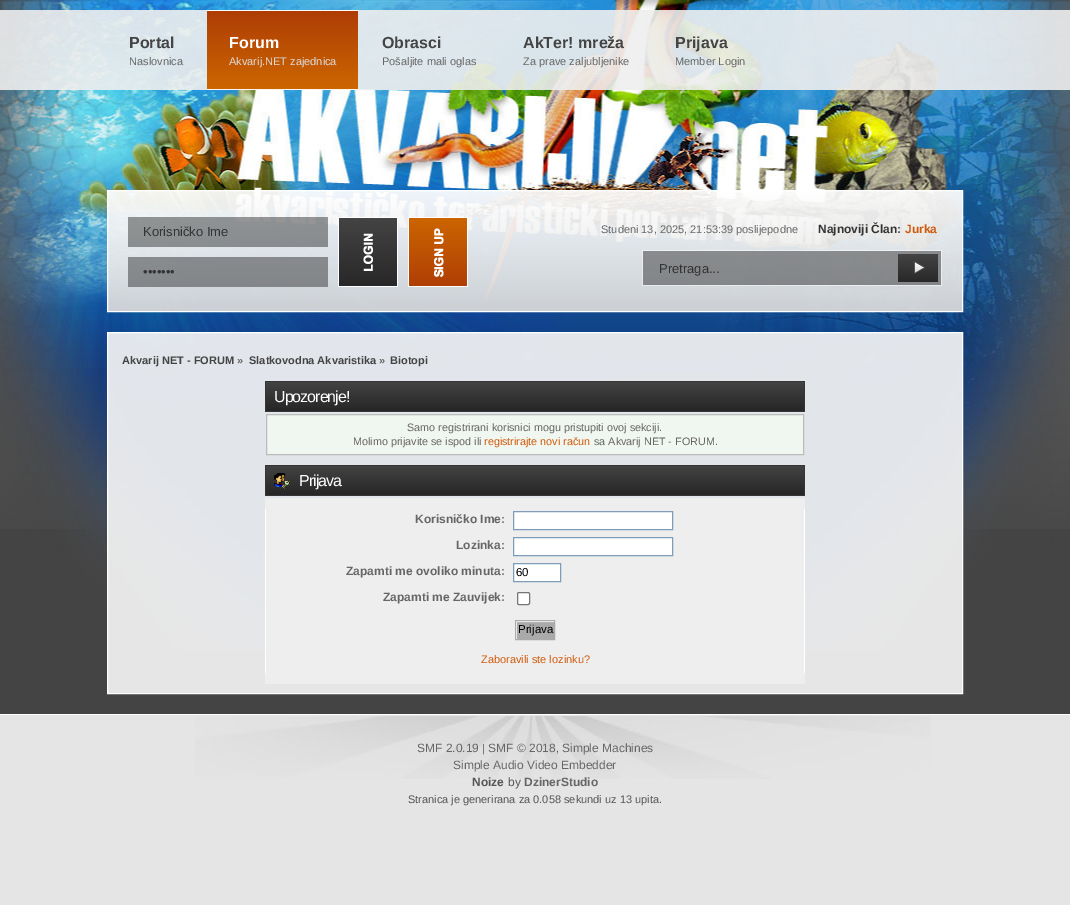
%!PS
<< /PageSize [1070 905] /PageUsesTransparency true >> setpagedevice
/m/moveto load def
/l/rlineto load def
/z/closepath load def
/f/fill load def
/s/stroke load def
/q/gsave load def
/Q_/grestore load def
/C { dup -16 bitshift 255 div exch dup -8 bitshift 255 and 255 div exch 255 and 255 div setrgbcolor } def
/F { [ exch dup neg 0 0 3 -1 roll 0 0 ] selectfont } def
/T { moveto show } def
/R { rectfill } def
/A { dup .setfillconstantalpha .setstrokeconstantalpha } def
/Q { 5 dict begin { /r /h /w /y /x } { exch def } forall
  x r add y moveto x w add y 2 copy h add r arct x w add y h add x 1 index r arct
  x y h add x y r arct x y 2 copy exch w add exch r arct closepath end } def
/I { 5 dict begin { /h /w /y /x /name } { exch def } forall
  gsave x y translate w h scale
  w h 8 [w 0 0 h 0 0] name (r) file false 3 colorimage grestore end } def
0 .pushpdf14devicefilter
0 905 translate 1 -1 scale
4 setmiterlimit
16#E5E5E5 C
0 0 1070 905 R
16#444444 C
0 529 1070 185 R
(1.rgb) 0 0 1070 529 I
(2.rgb) 0 0 1070 650 I
0.9 A
16#EEEEEE C
0 10 1070 80 R
/LiberationSans-Bold 16 F
1 A
16#444444 C
(Portal) 129 48 T
/LiberationSans-Regular 11 F
16#666666 C
(Naslovnica) 129 65 T
(3.rgb) 207 10 151 80 I
/LiberationSans-Bold 16 F
16#FFFFFF C
(Forum) 229 48 T
/LiberationSans-Regular 11 F
16#DDDDDD C
(Akvarij.NET zajednica) 229 65 T
/LiberationSans-Bold 16 F
16#444444 C
(Obrasci) 382 48 T
/LiberationSans-Regular 11 F
16#666666 C
(Pošaljite mali oglas) 382 65 T
/LiberationSans-Bold 16 F
16#444444 C
(AkTer! mreža) 523 48 T
/LiberationSans-Regular 11 F
16#666666 C
(Za prave zaljubljenike) 523 65 T
/LiberationSans-Bold 16 F
16#444444 C
(Prijava) 675 48 T
/LiberationSans-Regular 11 F
16#666666 C
(Member Login) 675 65 T
(4.rgb) 108 191 854 120 I
16#FFFFFF C
107.5 190.5 855 121 rectstroke
0.5 A
16#343434 C
128 217 200 30 R
/LiberationSans-Regular 13 F
1 A
16#333333 C
(Korisničko Ime) 143 236 T
(5.rgb) 338 217 60 70 I
0.5 A
16#343434 C
128 257 200 30 R
1 A
16#333333 C
(•••••••) 143 276 T
(6.rgb) 408 217 60 70 I
/LiberationSans-Regular 11 F
16#666666 C
(Studeni 13, 2025, 21:53:39 poslijepodne) 601 233 T
/LiberationSans-Bold 12 F
16#333333 C
(Najnoviji Član:) 818 233 T
16#CF5A0C C
(Jurka) 905 233 T
(7.rgb) 642 250 300 36 I
/LiberationSans-Regular 13 F
16#333333 C
(Pretraga...) 659 273 T
0.92 A
16#F4F4F4 C
107.5 332.5 m 855 0 l 0 361 l -855 0 l z f
1 A
16#FFFFFF C
107.5 332.5 m 855 0 l 0 361 l -855 0 l z s
/LiberationSans-Bold 11 F
16#444444 C
(Akvarij NET - FORUM) 122 364 T
16#666666 C
(») 237 364 T
16#444444 C
(Slatkovodna Akvaristika) 249 364 T
16#666666 C
(») 379 364 T
16#444444 C
(Biotopi) 390 364 T
(8.rgb) 265 381 540 31 I
16#363636 C
804 382 1 29 R
/LiberationSans-Regular 16 F
16#FFFFFF C
274 402 m -1 0 (Upozorenje!) ashow
16#F0F6F0 C
266.5 414.5 m 537 0 l 0 40 l -537 0 l z q f Q_
16#BBBBBB C
s
/LiberationSans-Regular 10.8 F
16#666666 C
(Samo registrirani korisnici mogu pristupiti ovoj sekciji.) 407 431 T
(Molimo prijavite se ispod ili) 353 445 T
16#CF5A0C C
(registrirajte novi račun) 484 445 T
16#666666 C
(sa Akvarij NET - FORUM.) 594 445 T
(8.rgb) 265 465 540 31 I
16#363636 C
804 466 1 29 R
(9.rgb) 274 473 16 16 I
/LiberationSans-Regular 16 F
16#FFFFFF C
299 486 m -1 0 (Prijava) ashow
16#EEEEEE C
265 498 540 11 R
266 509 538 164 R
16#FFFFFF C
804 509 1 164 R
265 509 1 164 R
/LiberationSans-Bold 12 F
16#666666 C
(Korisničko Ime:) 415 523 T
16#FFFFFF C
513.5 511.5 m 159 0 l 0 18 l -159 0 l z q f Q_
16#7F9DB9 C
s
16#666666 C
(Lozinka:) 456 549 T
16#FFFFFF C
513.5 537.5 m 159 0 l 0 18 l -159 0 l z q f Q_
16#7F9DB9 C
s
16#666666 C
(Zapamti me ovoliko minuta:) 346 575 T
16#FFFFFF C
513.5 563.5 m 47 0 l 0 18 l -47 0 l z q f Q_
16#7F9DB9 C
s
/LiberationSans-Regular 11.5 F
16#000000 C
(60) 516 576 T
/LiberationSans-Bold 12 F
16#666666 C
(Zapamti me Zauvijek:) 383 601 T
16#FFFFFF C
517.5 592.5 12 12 1.5 Q q f Q_
16#767676 C
s
(10.rgb) 516 621 38 18 I
16#AAAAAA C
515.5 620.5 39 19 rectstroke
/LiberationSans-Regular 11.5 F
16#000000 C
(Prijava) 518 633 T
/LiberationSans-Regular 11 F
16#CF5A0C C
(Zaboravili ste lozinku?) 481 663 T
16#EEEEEE C
265 673 540 11 R
16#FFFFFF C
0 714 1070 1 R
(11.rgb) 195 715 736 64 I
/LiberationSans-Regular 12 F
16#666666 C
(SMF 2.0.19) 417 752 T
/LiberationSans-Regular 11 F
16#555555 C
(|) 482 752 T
/LiberationSans-Regular 12 F
16#666666 C
(SMF © 2018) 488 752 T
/LiberationSans-Regular 11 F
16#555555 C
(,) 556 752 T
/LiberationSans-Regular 12 F
16#666666 C
(Simple Machines) 562 752 T
(Simple Audio Video Embedder) 453 769 T
/LiberationSans-Bold 12 F
16#555555 C
(Noize) 472 786 T
/LiberationSans-Regular 12 F
(by) 508 786 T
/LiberationSans-Bold 12 F
16#666666 C
(DzinerStudio) 524 786 T
/LiberationSans-Regular 11 F
16#555555 C
(Stranica je generirana za 0.058 sekundi uz 13 upita.) 408 803 T
.poppdf14devicefilter showpage
